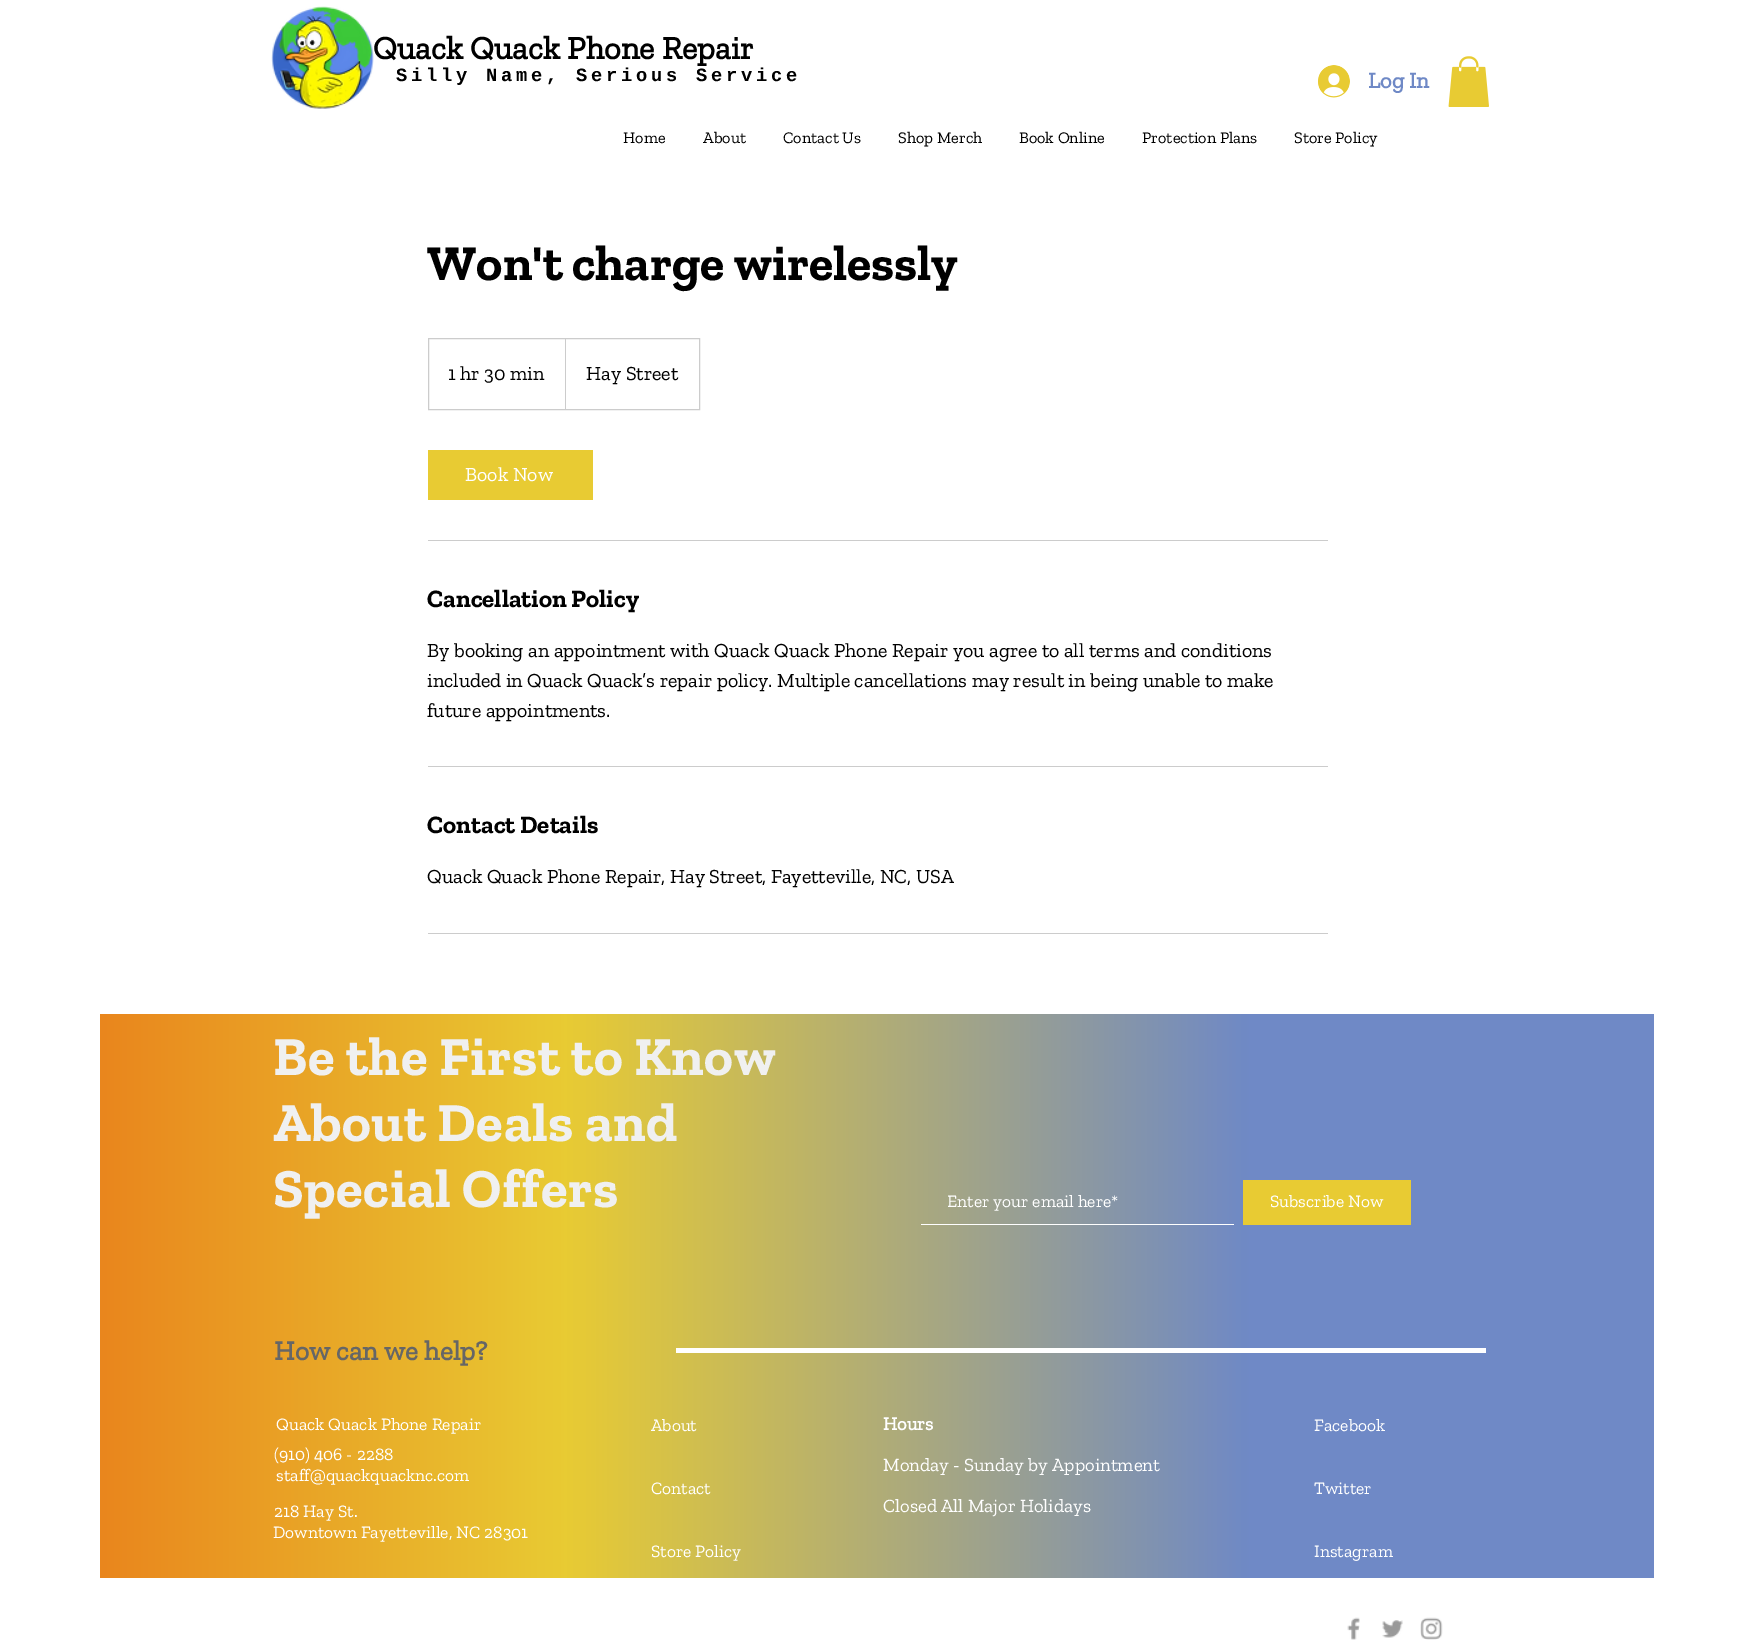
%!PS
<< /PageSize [1753 1651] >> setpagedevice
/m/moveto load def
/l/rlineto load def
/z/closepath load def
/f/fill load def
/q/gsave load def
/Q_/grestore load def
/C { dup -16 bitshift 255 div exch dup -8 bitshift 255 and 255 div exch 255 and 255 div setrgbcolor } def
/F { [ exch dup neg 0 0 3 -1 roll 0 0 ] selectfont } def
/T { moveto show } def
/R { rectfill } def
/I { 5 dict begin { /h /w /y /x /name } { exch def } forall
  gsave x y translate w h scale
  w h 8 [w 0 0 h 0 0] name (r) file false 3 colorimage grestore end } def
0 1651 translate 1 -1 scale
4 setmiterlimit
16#FFFFFF C
0 0 1753 1651 R
(1.rgb) 271 6 103 103 I
/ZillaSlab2-Bold 32.5 F
16#000000 C
(Quack Quack Phone Repair) 373 59 T
/LiberationMono-Bold 18.75 F
396 81 m 3.75 0 (Silly Name, Serious Service) ashow
(2.rgb) 1318 65 32 33 I
/ZillaSlab2-Bold 22.5 F
16#6F89C6 C
(Log In) 1368 88 T
(3.rgb) 1448 56 41 51 I
/ZillaSlab-Regular 16.25 F
16#000000 C
(Home) 623 143 T
(About) 703 143 T
(Contact Us) 783 143 T
(Shop Merch) 898 143 T
(Book Online) 1019 143 T
(Protection Plans) 1142 143 T
(Store Policy) 1294 143 T
/ZillaSlab-Bold 50 F
(Won't charge wirelessly) 427 280 T
16#CCCCCC C
428.5 338.5 271 71 rectstroke
/ZillaSlab-Regular 20 F
16#000000 C
(1 hr 30 min) 448 380 T
16#CCCCCC C
565 409 m 0 -71 l 1 1 l 0 70 l z f
16#000000 C
(Hay Street) 586 380 T
16#E8CB33 C
428 450 165 50 R
16#FFFFFF C
(Book Now) 465 481 T
16#CCCCCC C
428 540 900 1 R
/ZillaSlab-Bold 25 F
16#000000 C
(Cancellation Policy) 427 607 T
/ZillaSlab-Regular 20 F
(By booking an appointment with Quack Quack Phone Repair you agree to all terms and conditions) 427 657 T
(included in Quack Quack’s repair policy. Multiple cancellations may result in being unable to make) 427 687 T
(future appointments.) 427 717 T
16#CCCCCC C
428 766 900 1 R
/ZillaSlab-Bold 25 F
16#000000 C
(Contact Details) 427 833 T
/ZillaSlab-Regular 20 F
(Quack Quack Phone Repair, Hay Street, Fayetteville, NC, USA) 427 883 T
16#CCCCCC C
428 933 900 1 R
q 100 1014 m 1554 0 l 0 564 l -1554 0 l z clip newpath
<< /ShadingType 2 /ColorSpace /DeviceRGB /Coords [100 1296 1654 1296] /Extend [true true] /Function << /FunctionType 3 /Domain [0 1] /Functions [<< /FunctionType 2 /Domain [0 1] /C0 [.918 .525 .114] /C1 [.91 .796 .2] /N 1 >> << /FunctionType 2 /Domain [0 1] /C0 [.91 .796 .2] /C1 [.435 .537 .776] /N 1 >> << /FunctionType 2 /Domain [0 1] /C0 [.435 .537 .776] /C1 [.435 .537 .776] /N 1 >>] /Bounds [.3 .74] /Encode [0 1 0 1 0 1] >> >> shfill Q_
/ZillaSlab-Bold 55 F
16#F0F0F0 C
273 1075 m .55 0 (Be the First to Know) ashow
273 1141 m .55 0 (About Deals and) ashow
273 1207 m .55 0 (Special Offers) ashow
16#FFFFFF C
921 1224 313 1 R
q
948 1190 282 21 rectclip
/ZillaSlab-Regular 17.5 F
(Enter your email here*) 947 1207 T
Q_
16#E8CB33 C
1243 1180 168 45 R
/ZillaSlab-Regular 17.5 F
16#FFFFFF C
(Subscribe Now) 1270 1207 T
/ZillaSlab2-Bold 27.5 F
16#666666 C
(How can we help?) 274 1360 T
16#FFFFFF C
676 1348 810 5 R
/ZillaSlab-Regular 17.5 F
(Quack Quack Phone Repair) 276 1430 T
(About) 651 1431 T
/ZillaSlab2-Bold 18.75 F
(Hours) 883 1430 T
/ZillaSlab-Regular 18.75 F
(Monday - Sunday by Appointment) 883 1471 T
(Closed All Major Holidays) 883 1512 T
/ZillaSlab-Regular 17.5 F
(Facebook) 1314 1431 T
(\(910\) 406 - 2288) 274 1460 T
(staff@quackquacknc.com) 276 1481 T
(Contact) 651 1494 T
(Twitter) 1314 1494 T
(218 Hay St.) 274 1517 T
(Downtown Fayetteville, NC 28301) 273 1538 T
(Store Policy) 651 1557 T
(Instagram) 1314 1557 T
(4.rgb) 1347 1617 13 23 I
(5.rgb) 1382 1620 21 18 I
(6.rgb) 1420 1617 23 23 I
showpage
